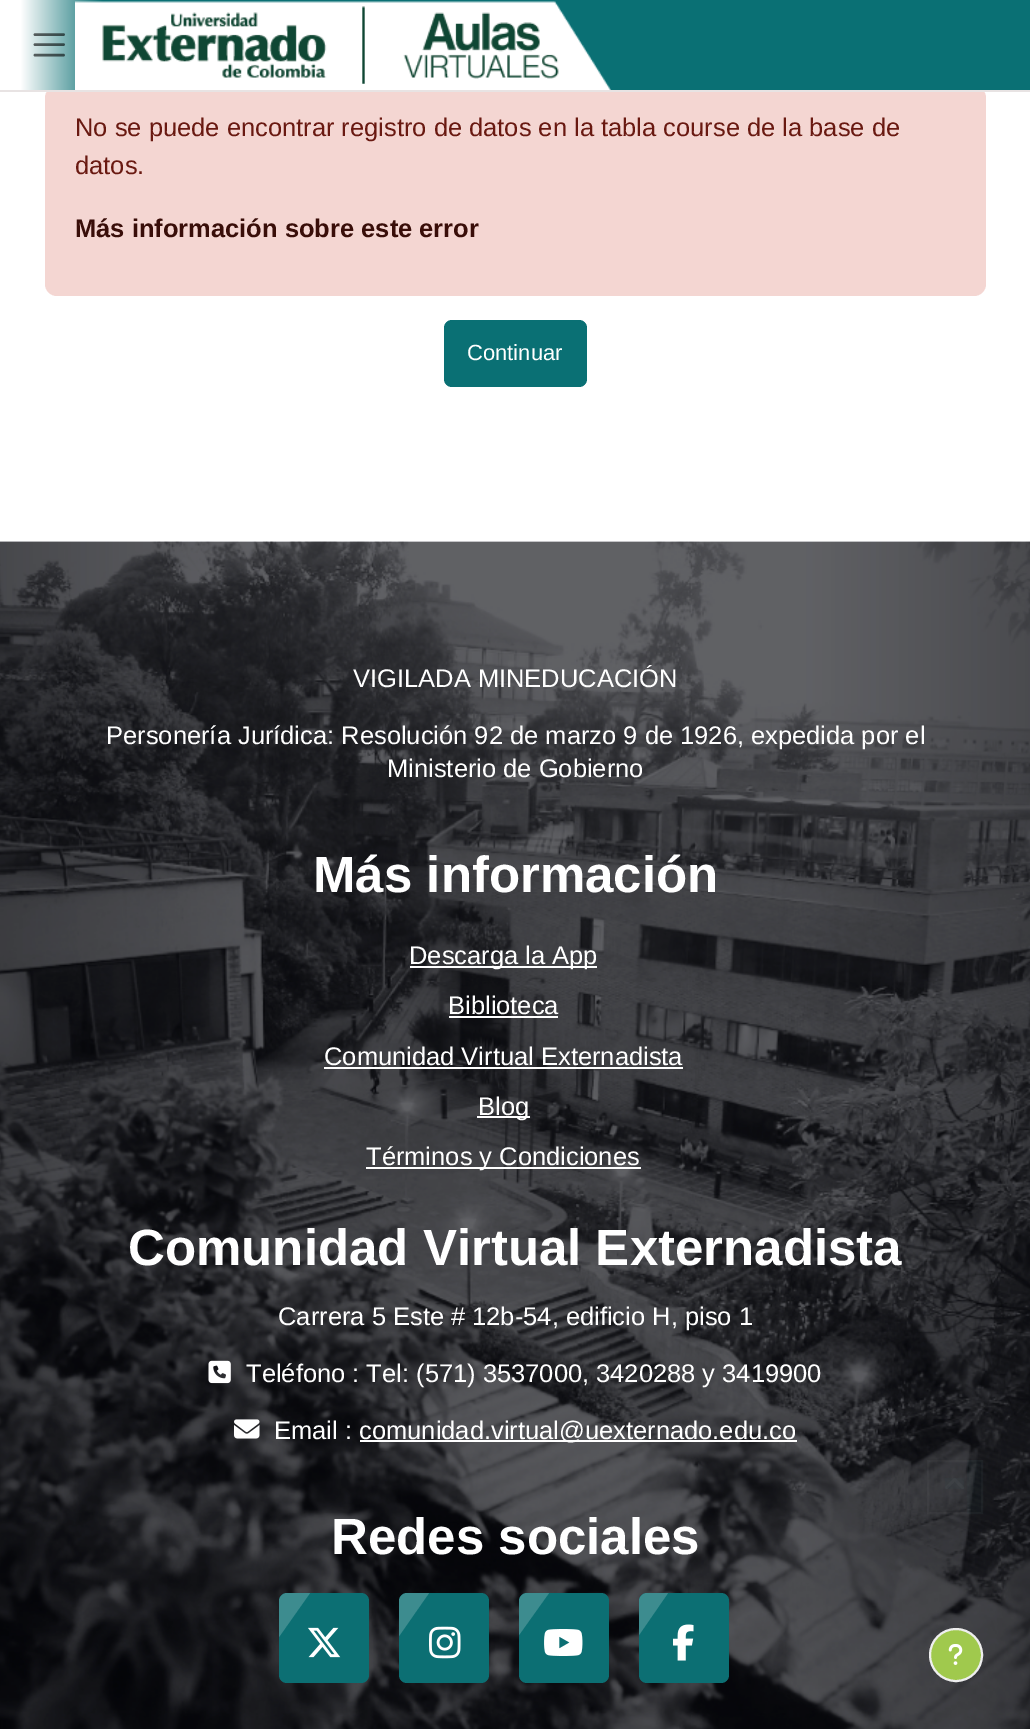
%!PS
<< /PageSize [1030 1729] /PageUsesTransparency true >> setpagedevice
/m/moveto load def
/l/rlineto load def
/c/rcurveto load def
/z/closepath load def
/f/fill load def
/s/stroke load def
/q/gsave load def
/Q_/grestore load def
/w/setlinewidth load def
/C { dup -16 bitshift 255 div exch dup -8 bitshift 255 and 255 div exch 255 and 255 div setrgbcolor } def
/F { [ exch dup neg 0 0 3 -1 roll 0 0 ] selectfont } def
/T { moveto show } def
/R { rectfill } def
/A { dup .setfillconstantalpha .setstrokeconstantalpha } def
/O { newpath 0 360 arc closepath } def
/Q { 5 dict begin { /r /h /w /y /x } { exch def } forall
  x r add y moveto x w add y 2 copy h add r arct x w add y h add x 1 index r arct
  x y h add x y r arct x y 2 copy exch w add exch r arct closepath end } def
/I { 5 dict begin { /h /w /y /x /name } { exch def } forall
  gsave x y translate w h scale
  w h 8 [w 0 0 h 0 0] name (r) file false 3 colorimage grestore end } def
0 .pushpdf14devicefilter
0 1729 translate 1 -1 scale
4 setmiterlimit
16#FFFFFF C
0 0 1030 1729 R
16#F4D6D2 C
45 86 941 210 12 Q f
q 21 0 m 1009 0 l 0 90 l -1009 0 l z clip newpath
<< /ShadingType 2 /ColorSpace /DeviceRGB /Coords [0 45 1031 45] /Extend [true true] /Function << /FunctionType 3 /Domain [0 1] /Functions [<< /FunctionType 2 /Domain [0 1] /C0 [1 1 1] /C1 [1 1 1] /N 1 >> << /FunctionType 2 /Domain [0 1] /C0 [1 1 1] /C1 [.039 .439 .455] /N 1 >> << /FunctionType 2 /Domain [0 1] /C0 [.039 .439 .455] /C1 [.039 .439 .455] /N 1 >>] /Bounds [.02 .1] /Encode [0 1 0 1 0 1] >> >> shfill Q_
16#E8E3E3 C
0 90 1030 2 R
0.6 A
16#000000 C
2.6 w
1 setlinecap
35 34.5 m 28.5 0 l 35 44.5 m 28.5 0 l 35 55 m 28.5 0 l s
1 A
(1.rgb) 75 1 536 89 I
/LiberationSans-Regular 25.5 F
16#691911 C
(No se puede encontrar registro de datos en la tabla course de la base de) 75 136 T
(datos.) 75 174 T
/LiberationSans-Bold 25.5 F
16#390E09 C
(Más información sobre este error) 75 237 T
16#0A7074 C
444 320 143 67 8 Q f
/LiberationSans-Regular 22 F
16#FFFFFF C
(Continuar) 467 360 T
(2.rgb) 0 541 1030 1188 I
/LiberationSans-Regular 25.5 F
(VIGILADA MINEDUCACIÓN) 353 687 T
(Personería Jurídica: Resolución 92 de marzo 9 de 1926, expedida por el) 106 744 T
(Ministerio de Gobierno) 387 777 T
/LiberationSans-Bold 51 F
(Más información) 313 892 T
410 966 187 2 R
/LiberationSans-Regular 25.5 F
(Descarga la App) 409 964 T
(Biblioteca) 448 1014 T
449 1016 109 2 R
(Comunidad Virtual Externadista) 324 1065 T
324 1067 359 2 R
477 1116 53 2 R
(Blog) 478 1115 T
366 1167 275 2 R
(Términos y Condiciones) 366 1165 T
/LiberationSans-Bold 51 F
(Comunidad Virtual Externadista) 128 1265 T
/LiberationSans-Regular 25.5 F
(Carrera 5 Este # 12b-54, edificio H, piso 1) 278 1325 T
(3.rgb) 208 1360 23 24 I
(Teléfono : Tel: \(571\) 3537000, 3420288 y 3419900) 246 1382 T
(4.rgb) 234 1419 26 20 I
(Email :) 274 1439 T
360 1440 437 2 R
(comunidad.virtual@uexternado.edu.co) 359 1439 T
/LiberationSans-Bold 51 F
(Redes sociales) 331 1554 T
16#0C6F73 C
279 1593 90 90 8 Q f
(5.rgb) 308 1627 33 31 I
0.2 A
16#FFFFFF C
287 1593 m 23 0 l -31 44 l 0 -36 l 0 -4 4 -8 8 -8 c z f
1 A
16#0C6F73 C
399 1593 90 90 8 Q f
(6.rgb) 429 1626 32 33 I
0.2 A
16#FFFFFF C
407 1593 m 22 0 l -30 43 l 0 -35 l 0 -4 4 -8 8 -8 c z f
1 A
16#0C6F73 C
519 1593 90 90 8 Q f
(7.rgb) 544 1629 39 27 I
0.2 A
16#FFFFFF C
527 1593 m 22 0 l -30 42 l 0 -34 l 0 -4 4 -8 8 -8 c z f
1 A
16#0C6F73 C
639 1593 90 90 8 Q f
(8.rgb) 673 1624 21 37 I
0.2 A
16#FFFFFF C
647 1593 m 21 0 l -29 42 l 0 -34 l 0 -4 4 -8 8 -8 c z f
1 A
16#A0C94D C
956 1655 26 O q f Q_
16#EEEEEE C
2 w
0 setlinecap
s
(9.rgb) 948 1644 15 21 I
0.03 A
16#0A7074 C
967 1460 16 54 R
16#FFFFFF C
928 1461 54 52 rectstroke
1 A
(10.rgb) 945 1478 19 11 I
.poppdf14devicefilter showpage
